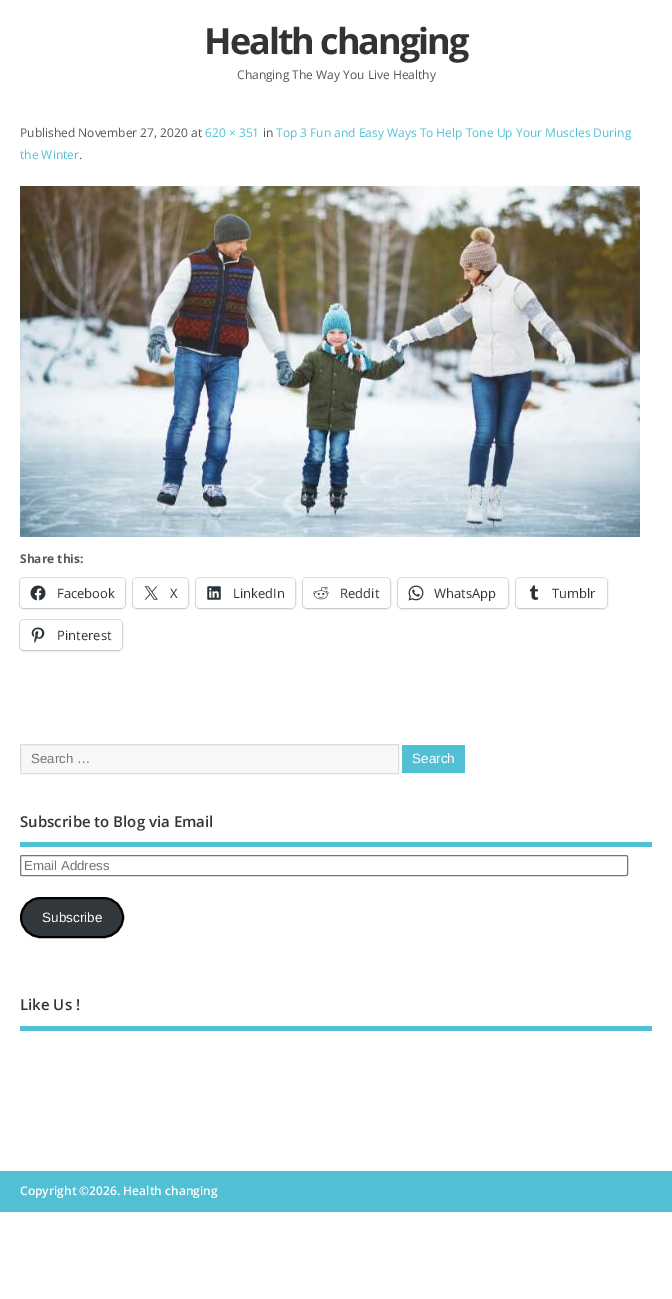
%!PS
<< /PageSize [672 1299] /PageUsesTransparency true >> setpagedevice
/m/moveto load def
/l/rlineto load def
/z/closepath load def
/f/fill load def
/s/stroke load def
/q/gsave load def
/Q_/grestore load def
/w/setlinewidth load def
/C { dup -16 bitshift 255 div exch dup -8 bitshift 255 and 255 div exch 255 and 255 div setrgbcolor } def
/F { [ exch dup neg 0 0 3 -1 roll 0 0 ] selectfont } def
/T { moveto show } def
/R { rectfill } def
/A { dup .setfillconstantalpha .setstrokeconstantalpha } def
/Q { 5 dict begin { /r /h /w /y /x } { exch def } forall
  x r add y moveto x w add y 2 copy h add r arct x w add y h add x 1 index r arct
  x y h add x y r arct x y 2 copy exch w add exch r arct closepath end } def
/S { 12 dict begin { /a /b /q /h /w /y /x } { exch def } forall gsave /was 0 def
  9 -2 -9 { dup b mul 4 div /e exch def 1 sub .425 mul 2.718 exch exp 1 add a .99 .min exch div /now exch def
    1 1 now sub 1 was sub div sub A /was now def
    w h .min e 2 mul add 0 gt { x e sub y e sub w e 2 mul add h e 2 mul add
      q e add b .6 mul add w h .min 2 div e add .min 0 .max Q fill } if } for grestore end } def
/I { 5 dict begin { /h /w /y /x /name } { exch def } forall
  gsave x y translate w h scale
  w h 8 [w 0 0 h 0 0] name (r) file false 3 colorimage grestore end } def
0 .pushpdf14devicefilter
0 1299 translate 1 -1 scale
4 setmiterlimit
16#FFFFFF C
0 0 672 1299 R
/OpenSans-Bold 36 F
16#333333 C
204 54 m -2 0 (Health changing) ashow
/OpenSans-Regular 12 F
16#555555 C
(Changing The Way You Live Healthy) 237 79 T
(Published November 27, 2020 at) 20 137 T
16#52C0D4 C
(620 × 351) 205 137 T
16#555555 C
(in) 263 137 T
16#52C0D4 C
(Top 3 Fun and Easy Ways To Help Tone Up Your Muscles During) 276 137 T
(the Winter) 20 159 T
16#555555 C
(.) 79 159 T
(1.rgb) 20 186 620 351 I
/OpenSans-Bold 12 F
(Share this:) 20 563 T
16#E0E0E0 C
19.5 577.5 106 31 4.5 Q s
16#000000 C
20 579 105 30 4 1 .12 S
16#FFFFFF C
20 578 105 30 4 Q f
(2.rgb) 30 585 16 16 I
/OpenSans-Regular 13 F
16#2C3338 C
(Facebook) 57 598 T
16#E0E0E0 C
132.5 577.5 56 31 4.5 Q s
16#000000 C
133 579 55 30 4 1 .12 S
16#FFFFFF C
133 578 55 30 4 Q f
(3.rgb) 144 586 14 14 I
16#2C3338 C
(X) 170 598 T
16#E0E0E0 C
195.5 577.5 100 31 4.5 Q s
16#000000 C
196 579 99 30 4 1 .12 S
16#FFFFFF C
196 578 99 30 4 Q f
(4.rgb) 207 586 14 14 I
16#2C3338 C
(LinkedIn) 233 598 T
16#E0E0E0 C
302.5 577.5 88 31 4.5 Q s
16#000000 C
303 579 87 30 4 1 .12 S
16#FFFFFF C
303 578 87 30 4 Q f
(5.rgb) 313 586 16 14 I
16#2C3338 C
(Reddit) 340 598 T
16#E0E0E0 C
397.5 577.5 111 31 4.5 Q s
16#000000 C
398 579 110 30 4 1 .12 S
16#FFFFFF C
398 578 110 30 4 Q f
(6.rgb) 408 585 16 16 I
16#2C3338 C
(WhatsApp) 434 598 T
16#E0E0E0 C
515.5 577.5 92 31 4.5 Q s
16#000000 C
516 579 91 30 4 1 .12 S
16#FFFFFF C
516 578 91 30 4 Q f
(7.rgb) 529 585 10 15 I
16#2C3338 C
(Tumblr) 552 598 T
16#E0E0E0 C
19.5 619.5 103 31 4.5 Q s
16#000000 C
20 621 102 30 4 1 .12 S
16#FFFFFF C
20 620 102 30 4 Q f
(8.rgb) 31 627 14 16 I
16#2C3338 C
(Pinterest) 57 640 T
16#F7F7F7 C
20.5 744.5 m 378 0 l 0 29 l -378 0 l z q f Q_
16#DDDDDD C
s
/LiberationSans-Regular 13.25 F
16#757575 C
(Search …) 31 763 T
16#52C0D4 C
402 745 63 28 R
/LiberationSans-Regular 13.5 F
16#FFFFFF C
(Search) 412 763 T
16#52C0D4 C
20 842 632 5 R
/OpenSans-SemiBold 15 F
16#333333 C
(Subscribe to Blog via Email) 20 827 T
16#767676 C
20.5 855.5 607 20 1.5 Q s
/LiberationSans-Regular 13.25 F
16#757575 C
(Email Address) 24 870 T
16#32373C C
21 898 102 39 19.5 Q q f Q_
16#000000 C
2 w
s
/LiberationSans-Regular 13.5 F
16#FFFFFF C
(Subscribe) 42 922 T
16#52C0D4 C
20 1026 632 5 R
/OpenSans-SemiBold 15 F
16#333333 C
(Like Us !) 20 1010 T
16#52C0D4 C
0 1171 672 41 R
/OpenSans-SemiBold 12 F
16#FFFFFF C
(Copyright ©2026. Health changing) 20 1195 T
.poppdf14devicefilter showpage
